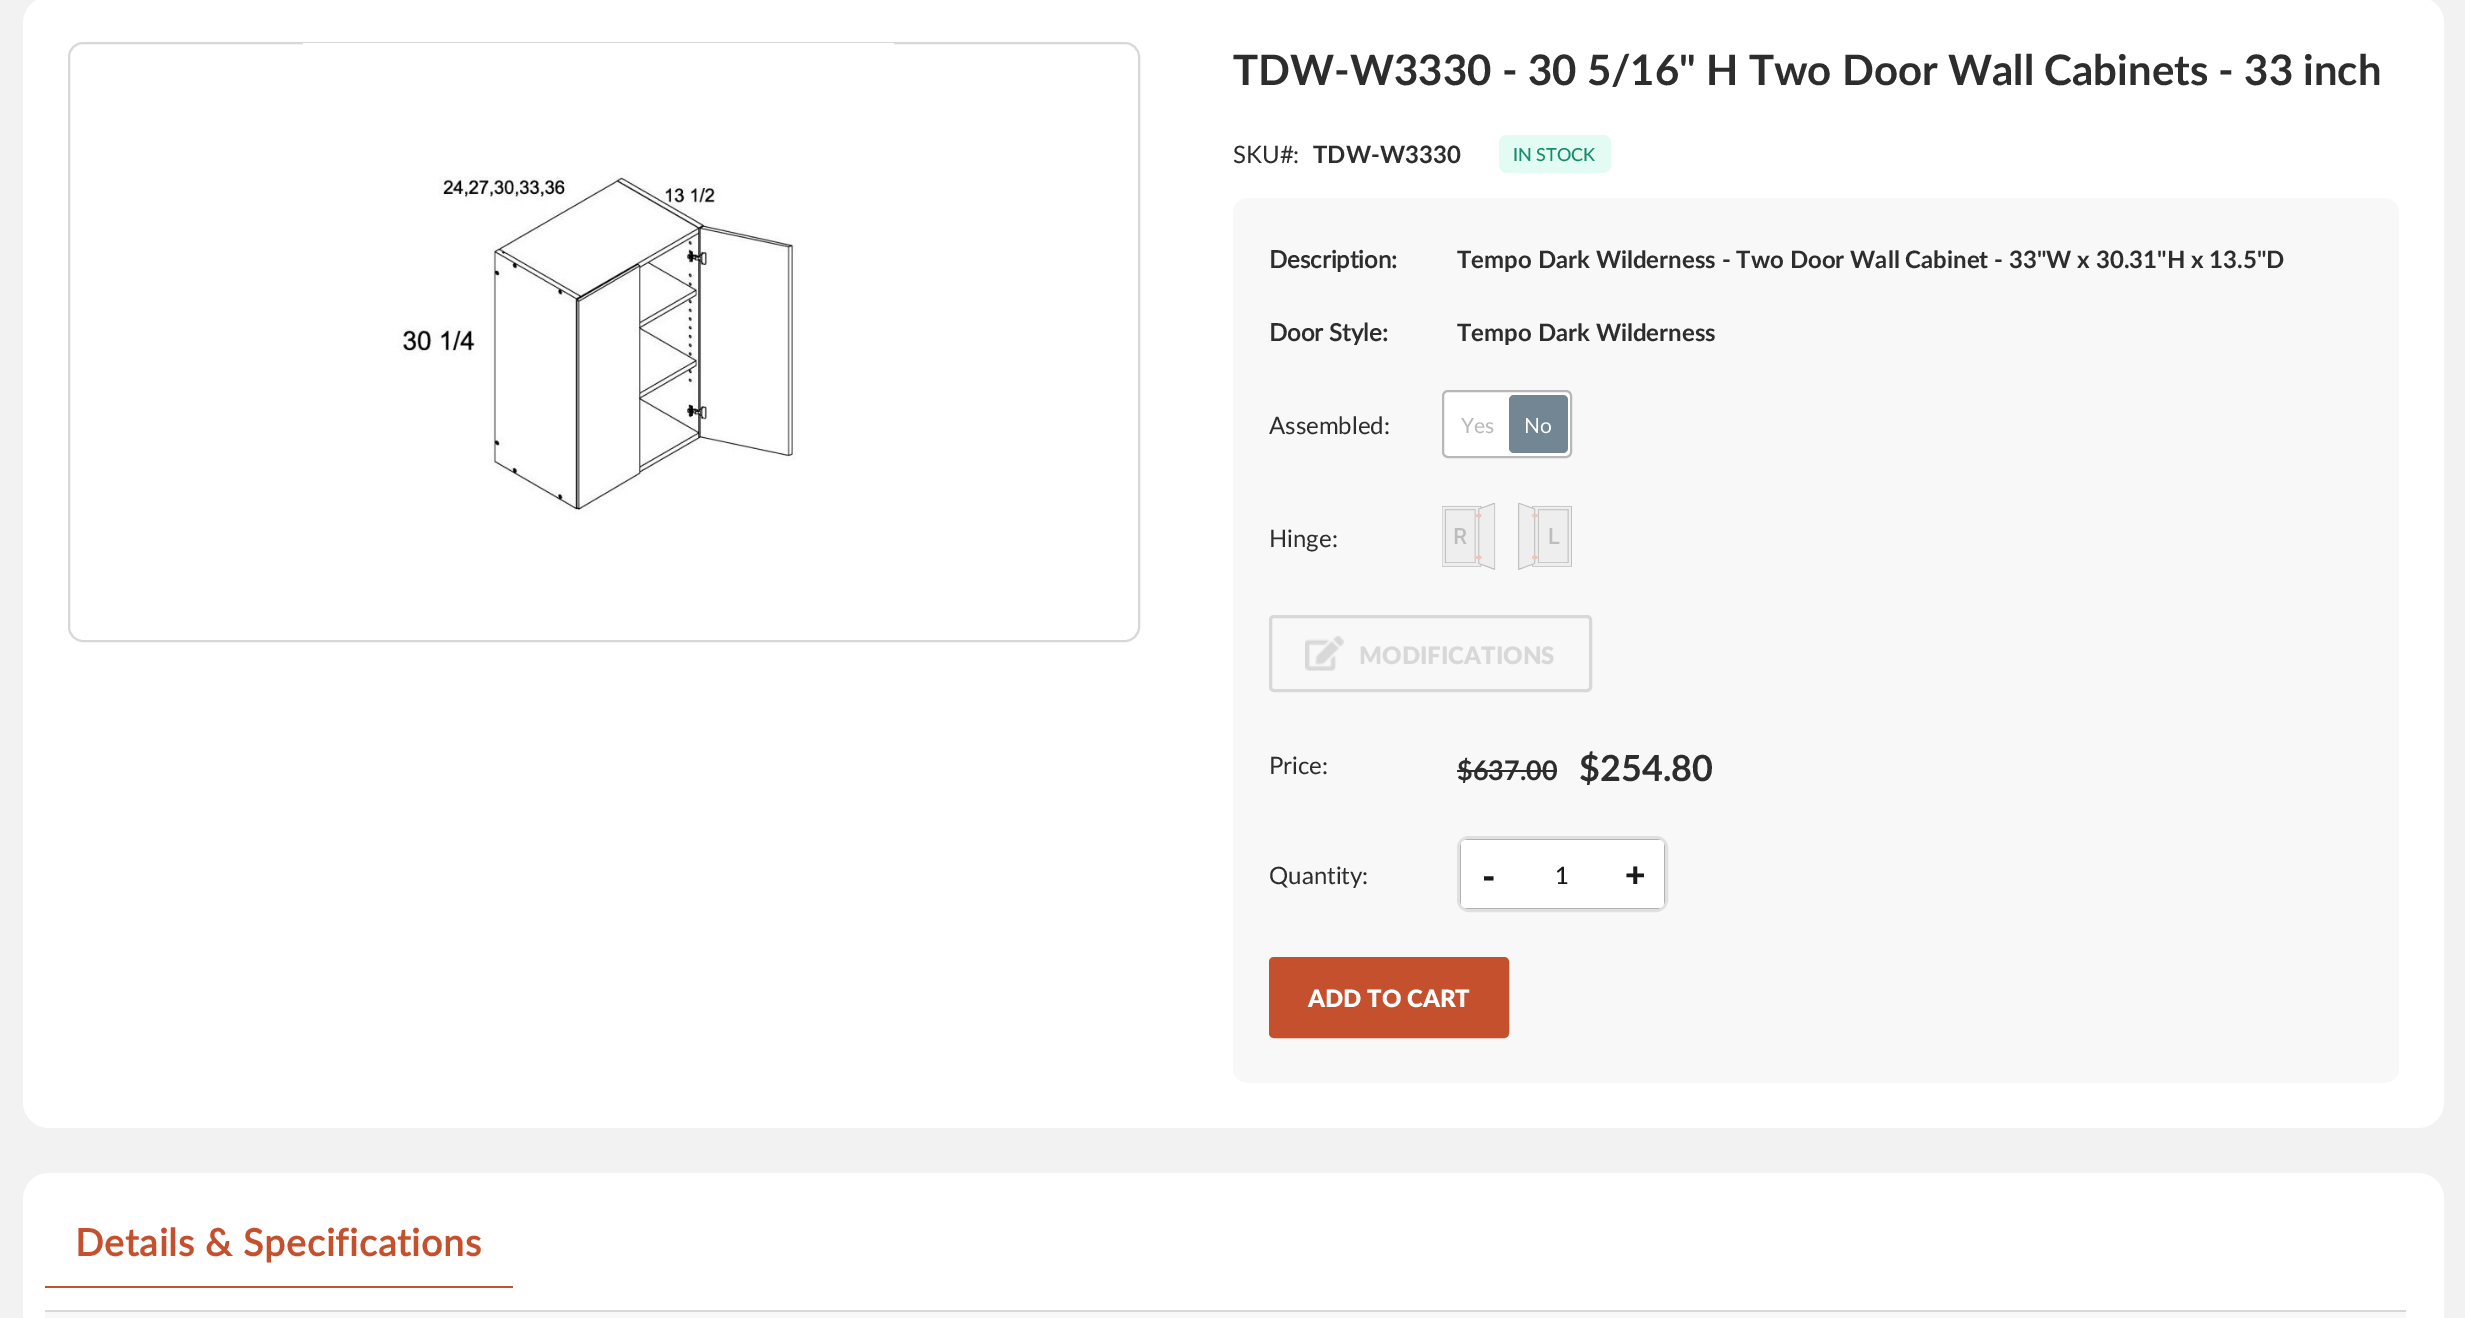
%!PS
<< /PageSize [2465 1318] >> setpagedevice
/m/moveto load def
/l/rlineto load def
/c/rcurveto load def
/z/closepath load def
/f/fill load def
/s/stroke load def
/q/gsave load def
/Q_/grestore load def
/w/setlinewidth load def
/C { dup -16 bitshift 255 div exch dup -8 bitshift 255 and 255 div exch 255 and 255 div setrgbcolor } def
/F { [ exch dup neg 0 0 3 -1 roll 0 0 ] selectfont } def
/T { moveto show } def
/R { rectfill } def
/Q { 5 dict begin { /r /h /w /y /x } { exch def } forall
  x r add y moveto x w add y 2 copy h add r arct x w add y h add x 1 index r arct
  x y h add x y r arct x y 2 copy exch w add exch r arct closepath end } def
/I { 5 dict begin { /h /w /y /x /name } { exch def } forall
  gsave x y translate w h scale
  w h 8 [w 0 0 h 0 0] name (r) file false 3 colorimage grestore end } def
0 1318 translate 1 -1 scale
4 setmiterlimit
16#F2F2F2 C
0 0 2465 1318 R
16#FFFFFF C
23 -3 2421 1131 26 Q f
16#D8D8D8 C
2 w
69 43 1070 598 14 Q s
(1.rgb) 303 43 591 472 I
/Lato-Bold 42 F
16#2D2D2D C
(TDW-W3330 - 30 5/16" H Two Door Wall Cabinets - 33 inch) 1233 85 T
/Lato-Regular 24 F
(SKU#:) 1233 163 T
/Lato-Bold 24 F
(TDW-W3330) 1313 163 T
16#E2FCF4 C
1499 135 112 38 8 Q f
/Lato-Medium 18 F
16#178B6C C
(IN STOCK) 1513 161 T
16#F9F8F8 C
1233 198 1166 885 15 Q f
/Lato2-Bold 24 F
16#2D2D2D C
(Description:) 1269 268 T
/Lato-Bold 24 F
(Tempo Dark Wilderness - Two Door Wall Cabinet - 33"W x 30.31"H x 13.5"D) 1457 268 T
/Lato2-Bold 24 F
(Door Style:) 1269 341 T
/Lato-Bold 24 F
(Tempo Dark Wilderness) 1457 341 T
/Lato-Regular 24 F
(Assembled:) 1269 434 T
16#FFFFFF C
1443 391 128 66 5 Q q f Q_
16#B8B8B8 C
s
/Lato-Regular 21 F
(Yes) 1461 433 T
16#738693 C
1509 395 59 58 5 Q f
16#FFFFFF C
(No) 1524 433 T
/Lato-Regular 24 F
16#2D2D2D C
(Hinge:) 1269 547 T
(2.rgb) 1442 503 54 67 I
(3.rgb) 1518 503 54 67 I
16#D8D8D8 C
3 w
1270.5 616.5 320 74 3.5 Q s
(4.rgb) 1305 636 39 35 I
/Lato-Black 24 F
(MODIFICATIONS) 1359 664 T
/Lato-Regular 24 F
16#2D2D2D C
(Price:) 1269 774 T
/Lato-Bold 27 F
($637.00) 1457 780 T
1457 770 100 2 R
/Lato-Bold 36 F
($254.80) 1579 781 T
/Lato-Regular 24 F
(Quantity:) 1269 884 T
16#E0E0E0 C
1458.5 837.5 208 73 10.5 Q s
16#B2B2B2 C
1469 839 m -5 0 -9 4 -9 9 c 0 52 l 0 5 4 9 9 9 c 187 0 l 5 0 9 -4 9 -9 c 0 -52 l 0 -5 -4 -9 -9 -9 c z 1466 841 m -2 0 -4 2 -4 4 c 0 58 l 0 2 2 4 4 4 c 193 0 l 2 0 4 -2 4 -4 c 0 -58 l 0 -2 -2 -4 -4 -4 c z eofill
q
1460 839 205 70 9 Q clip newpath
16#FFFFFF C
1466 840 m 52 0 l 0 68 l -52 0 l -3 0 -5 -2 -5 -5 c 0 -58 l 0 -3 2 -5 5 -5 c z f
Q_
/OpenSans-Bold 36 F
16#191919 C
(-) 1483 888 T
16#FFFFFF C
1518 840 90 68 R
/Lato-Medium 24 F
16#191919 C
(1) 1555 884 T
q
1460 839 205 70 9 Q clip newpath
16#FFFFFF C
1608 840 m 51 0 l 3 0 5 2 5 5 c 0 58 l 0 3 -2 5 -5 5 c -51 0 l z f
Q_
/OpenSans-Bold 36 F
(+) 1625 888 T
16#C4502E C
1270.5 958.5 237 78 3.5 Q q f Q_
s
/Lato-Black 24 F
16#FFFFFF C
(ADD TO CART) 1308 1007 T
23 1173 2421 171 26 Q f
16#C4502E C
45 1286 468 2 R
/Lato2-Bold 37.5 F
75 1256 m .8 0 (Details & Specifications) ashow
16#F9F8F8 C
45 1312 2361 6 R
16#D8D8D8 C
45 1310 2361 2 R
showpage
